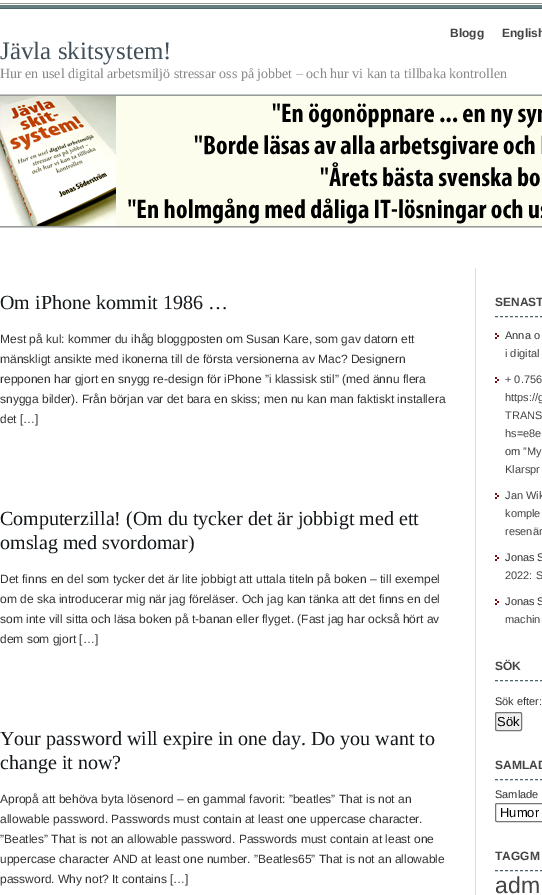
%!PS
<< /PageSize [542 895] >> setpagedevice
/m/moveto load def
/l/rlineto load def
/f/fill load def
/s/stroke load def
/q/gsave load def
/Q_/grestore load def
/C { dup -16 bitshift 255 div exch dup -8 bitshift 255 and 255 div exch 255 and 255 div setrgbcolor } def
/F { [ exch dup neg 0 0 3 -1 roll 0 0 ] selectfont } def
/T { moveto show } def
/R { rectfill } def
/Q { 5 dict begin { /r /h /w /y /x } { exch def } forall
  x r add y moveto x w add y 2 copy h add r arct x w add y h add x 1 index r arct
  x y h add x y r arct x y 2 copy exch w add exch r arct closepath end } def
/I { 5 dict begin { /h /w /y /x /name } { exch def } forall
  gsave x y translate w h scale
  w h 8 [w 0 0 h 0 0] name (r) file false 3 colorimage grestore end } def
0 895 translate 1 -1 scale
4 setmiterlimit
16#FFFFFF C
0 0 542 895 R
(1.rgb) 0 3 542 6 I
/LiberationSans-Bold 12 F
16#444444 C
(Blogg) 450 37 T
(English) 502 37 T
/LiberationSerif-Regular 25 F
16#414F59 C
(Jävla skitsystem!) 0 59 T
/LiberationSerif-Regular 14 F
16#888888 C
(Hur en usel digital arbetsmiljö stressar oss på jobbet – och hur vi kan ta tillbaka kontrollen) 0 78 T
(2.rgb) 0 94 542 134 I
/LiberationSerif-Regular 20 F
16#14181A C
(Om iPhone kommit 1986 …) 0 309 T
/LiberationSans-Regular 12 F
16#323232 C
(Mest på kul: kommer du ihåg bloggposten om Susan Kare, som gav datorn ett) 0 343 T
(mänskligt ansikte med ikonerna till de första versionerna av Mac? Designern) 0 363 T
(repponen har gjort en snygg re-design för iPhone ”i klassisk stil” \(med ännu flera) 0 383 T
(snygga bilder\). Från början var det bara en skiss; men nu kan man faktiskt installera) 0 403 T
(det […]) 0 423 T
/LiberationSerif-Regular 20 F
16#14181A C
(Computerzilla! \(Om du tycker det är jobbigt med ett) 0 525 T
(omslag med svordomar\)) 0 549 T
/LiberationSans-Regular 12 F
16#323232 C
(Det finns en del som tycker det är lite jobbigt att uttala titeln på boken – till exempel) 0 583 T
(om de ska introducerar mig när jag föreläser. Och jag kan tänka att det finns en del) 0 603 T
(som inte vill sitta och läsa boken på t-banan eller flyget. \(Fast jag har också hört av) 0 623 T
(dem som gjort […]) 0 643 T
/LiberationSerif-Regular 20 F
16#14181A C
(Your password will expire in one day. Do you want to) 0 745 T
(change it now?) 0 769 T
/LiberationSans-Regular 12 F
16#323232 C
(Apropå att behöva byta lösenord – en gammal favorit: ”beatles” That is not an) 0 803 T
(allowable password. Passwords must contain at least one uppercase character.) 0 823 T
(”Beatles” That is not an allowable password. Passwords must contain at least one) 0 843 T
(uppercase character AND at least one number. ”Beatles65” That is not an allowable) 0 863 T
(password. Why not? It contains […]) 0 883 T
16#E2DDDE C
475 268 1 627 R
16#4C666A C
[3 2] 0 setdash
495 316.5 m 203 0 l s
/LiberationSans-Bold 12 F
16#444444 C
(SENAST) 495 306 T
(3.rgb) 495 333 4 6 I
/LiberationSans-Regular 11 F
16#323232 C
(Anna o) 505 339 T
16#444444 C
(i digital) 505 357 T
(3.rgb) 495 377 4 6 I
(+ 0.756) 505 383 T
(https://g) 505 401 T
(TRANS) 505 419 T
(hs=e8e) 505 437 T
16#323232 C
(om) 505 455 T
16#444444 C
(”My) 523 455 T
(Klarspr) 505 473 T
(3.rgb) 495 493 4 6 I
(Jan Wik) 505 499 T
(komple) 505 517 T
(resenär) 505 535 T
(3.rgb) 495 555 4 6 I
16#323232 C
(Jonas S) 505 561 T
16#444444 C
(2022: S) 505 579 T
(3.rgb) 495 599 4 6 I
16#323232 C
(Jonas S) 505 605 T
16#444444 C
(machin) 505 623 T
16#4C666A C
495 680.5 m 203 0 l s
/LiberationSans-Bold 12 F
16#444444 C
(SÖK) 495 670 T
/LiberationSans-Regular 11 F
16#323232 C
(Sök efter:) 495 705 T
16#EFEFEF C
495.5 712.5 26 18 1.5 Q q f Q_
16#767676 C
[] 0 setdash
s
/LiberationSans-Regular 13 F
16#000000 C
(Sök) 497 726 T
16#4C666A C
[3 2] 0 setdash
495 779.5 m 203 0 l s
/LiberationSans-Bold 12 F
16#444444 C
(SAMLAD) 495 769 T
/LiberationSans-Regular 11 F
16#323232 C
(Samlade) 495 798 T
16#767676 C
[] 0 setdash
495.5 803.5 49 18 1.5 Q s
/LiberationSans-Regular 13 F
16#000000 C
(Humor) 500 817 T
16#4C666A C
[3 2] 0 setdash
495 870.5 m 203 0 l s
/LiberationSans-Bold 12 F
16#444444 C
(TAGGM) 495 860 T
/LiberationSans-Regular 23 F
(adm) 495 893 T
showpage
